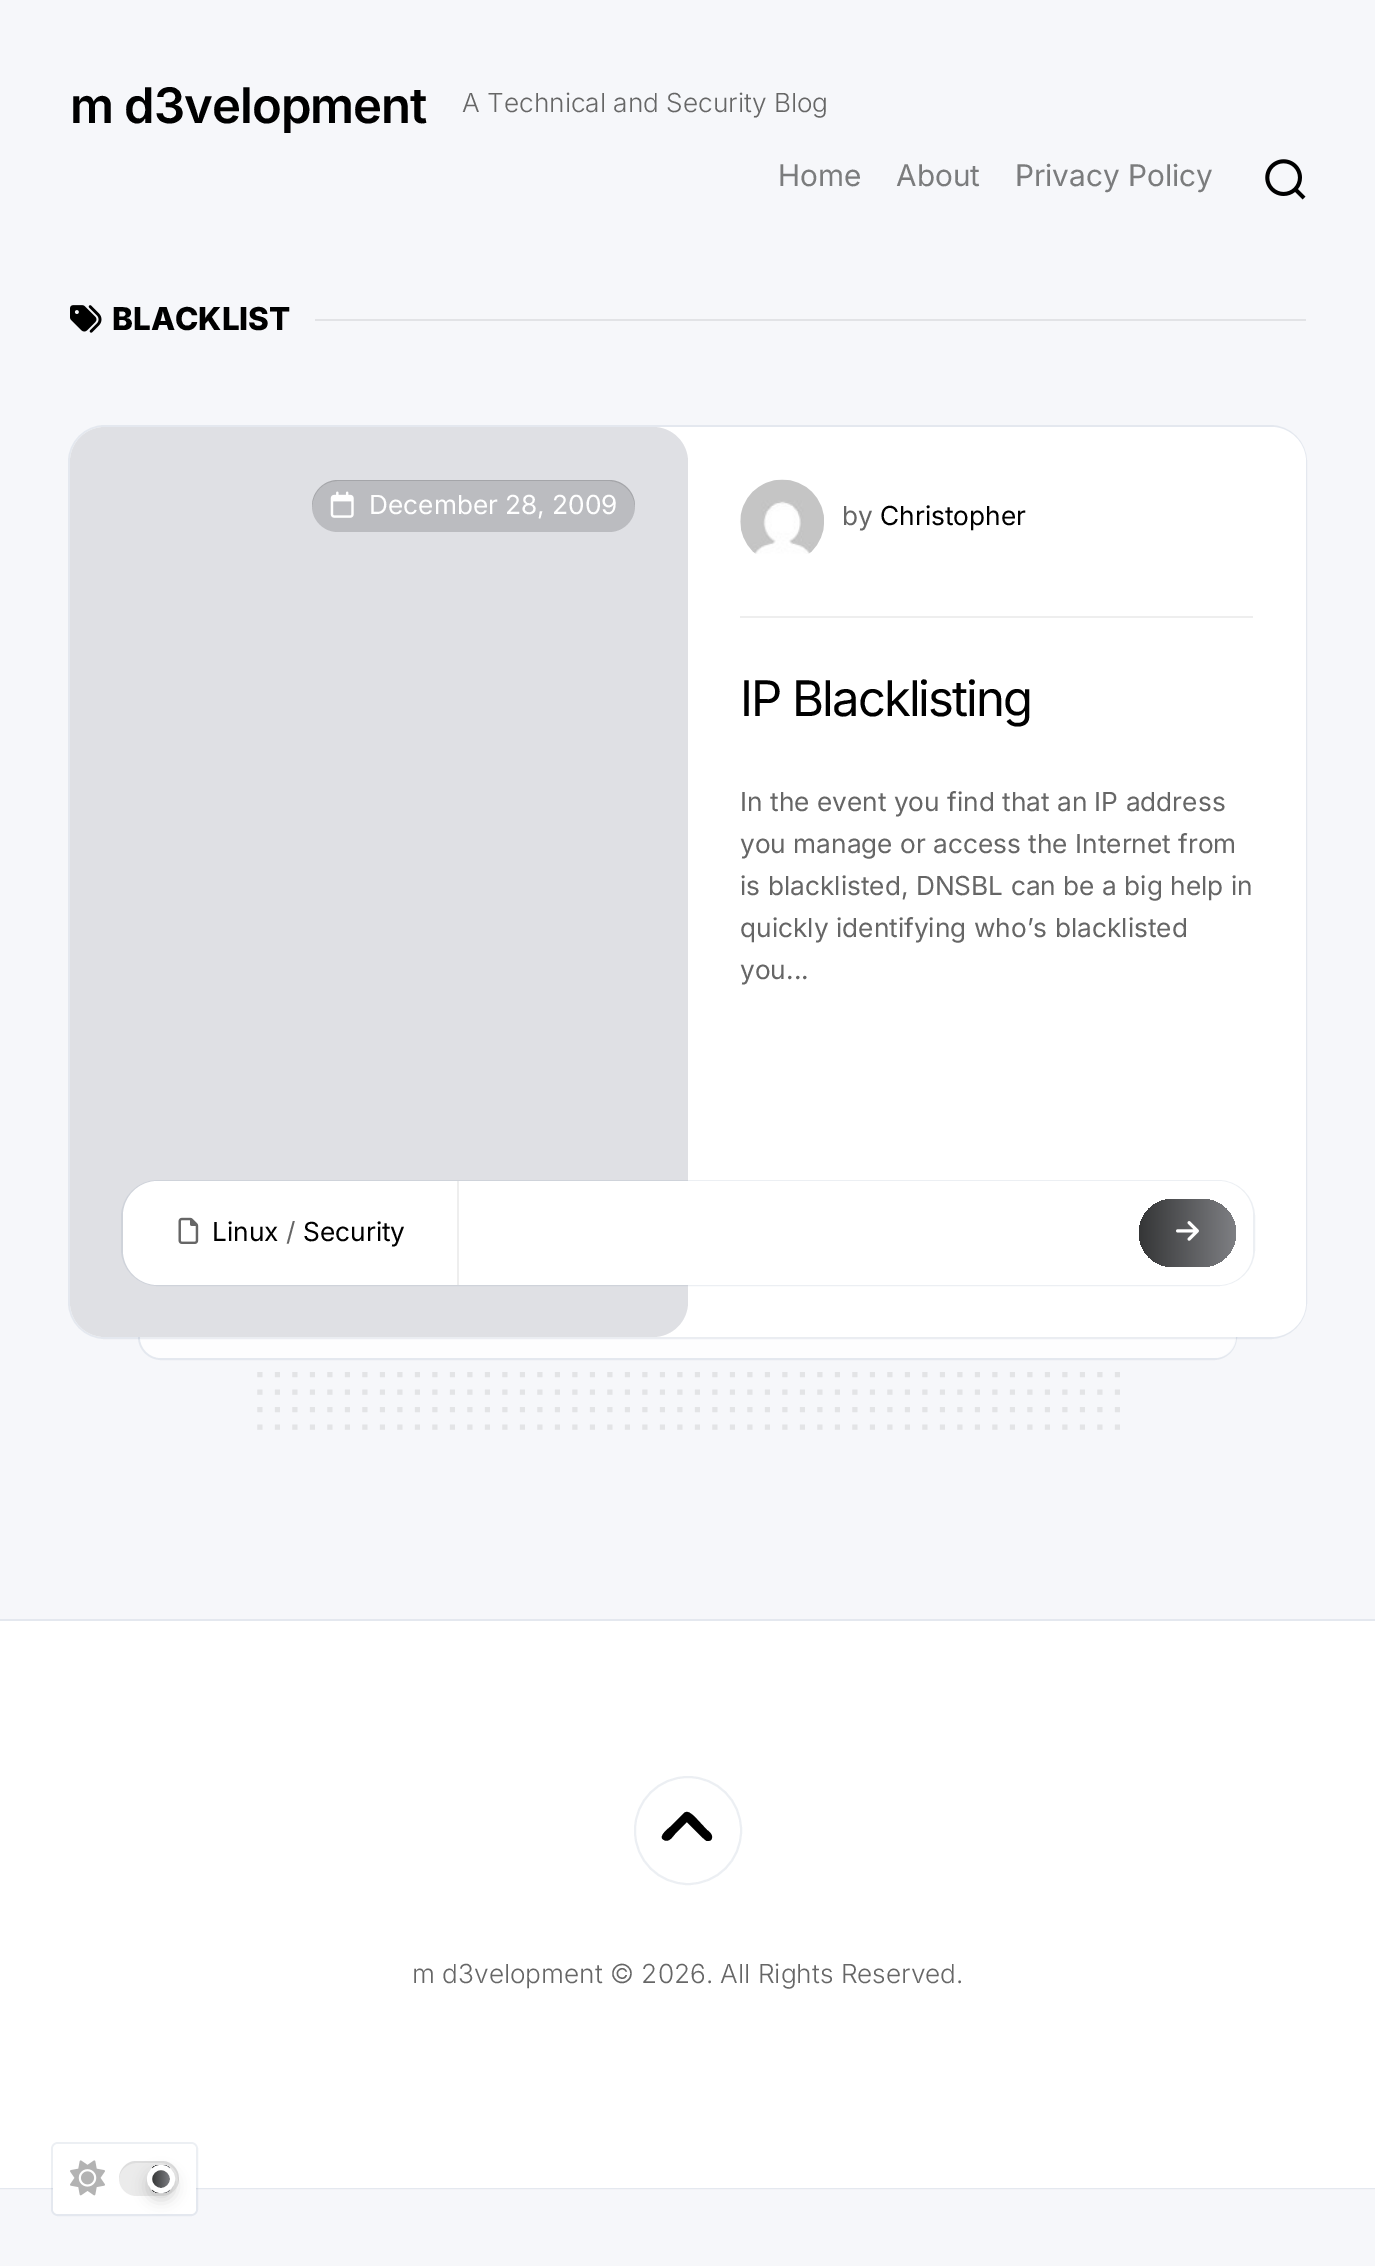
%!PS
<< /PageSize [1375 2266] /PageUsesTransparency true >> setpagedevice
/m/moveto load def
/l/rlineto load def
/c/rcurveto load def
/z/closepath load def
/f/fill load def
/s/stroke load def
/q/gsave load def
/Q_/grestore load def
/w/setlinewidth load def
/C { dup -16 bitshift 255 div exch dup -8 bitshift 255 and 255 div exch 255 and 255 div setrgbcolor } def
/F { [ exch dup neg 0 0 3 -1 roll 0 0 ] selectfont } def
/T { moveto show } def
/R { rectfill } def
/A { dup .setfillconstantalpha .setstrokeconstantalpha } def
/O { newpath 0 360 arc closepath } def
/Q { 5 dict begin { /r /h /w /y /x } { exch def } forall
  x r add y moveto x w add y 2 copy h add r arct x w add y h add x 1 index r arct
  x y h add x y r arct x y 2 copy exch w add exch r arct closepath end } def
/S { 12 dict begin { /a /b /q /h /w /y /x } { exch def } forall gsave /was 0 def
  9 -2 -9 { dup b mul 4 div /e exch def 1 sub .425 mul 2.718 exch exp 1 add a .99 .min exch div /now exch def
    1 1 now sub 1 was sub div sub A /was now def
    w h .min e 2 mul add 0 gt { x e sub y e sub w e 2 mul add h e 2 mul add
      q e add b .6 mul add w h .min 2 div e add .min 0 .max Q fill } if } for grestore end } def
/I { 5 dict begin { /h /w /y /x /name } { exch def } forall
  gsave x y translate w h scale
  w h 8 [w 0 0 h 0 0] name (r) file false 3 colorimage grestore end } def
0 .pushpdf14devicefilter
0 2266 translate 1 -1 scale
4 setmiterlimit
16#F6F7FA C
0 0 1375 2266 R
/Inter-SemiBold 49 F
16#000000 C
70 123 m -1 0 (m d3velopment) ashow
/Inter-Light 26.25 F
16#666666 C
(A Technical and Security Blog) 462 112 T
/Inter-Regular 29.75 F
16#7B7C7D C
(Home) 778 186 T
(About) 896 186 T
(Privacy Policy) 1015 186 T
(1.rgb) 1265 159 41 41 I
(2.rgb) 70 305 32 28 I
/Inter-ExtraBold 31.5 F
16#000000 C
(BLACKLIST) 112 330 T
16#E2E3E6 C
315 319 991 2 R
0.08 A
16#123769 C
2 w
139 1336 m 1097 0 l 0 1 l 0 12 -10 22 -22 22 c -1053 0 l -12 0 -22 -10 -22 -22 c z s
0.8 A
16#FFFFFF C
140 1337 m 1096 0 l 0 11.5 -9.5 21 -21 21 c -1054 0 l -11.5 0 -21 -9.5 -21 -21 c z f
0.08 A
16#123769 C
69 426 1237 912 36 Q s
1 A
16#FFFFFF C
70 427 1236 910 35 Q f
16#DFE0E4 C
70 427 618 910 35 Q f
16#BBBCC0 C
312 480 323 52 26 Q f
0.12 A
16#000000 C
338 481 m 271 0 l 14 0 25 11 26 26 c 0 -1 l 0 -14 -12 -26 -26 -26 c -271 0 l -14 0 -26 12 -26 26 c 0 1 l 1 -15 11 -26 26 -26 c z f
1 A
(3.rgb) 330 491 24 27 I
/Inter-Regular 26.25 F
16#FFFFFF C
(December 28, 2009) 369 514 T
16#EEEEEE C
740 616 513 2 R
(4.rgb) 740 479 84 75 I
16#666666 C
(by) 842 525 T
16#000000 C
(Christopher) 880 525 T
/Inter-Regular 49 F
740 716 m -2 0 (IP Blacklisting) ashow
/Inter-Regular 26.25 F
16#666666 C
(In the event you find that an IP address) 740 811 T
(you manage or access the Internet from) 740 853 T
(is blacklisted, DNSBL can be a big help in) 740 895 T
(quickly identifying who’s blacklisted) 740 937 T
(you...) 740 979 T
0.08 A
16#123769 C
122 1181 1132 104 36 Q s
1 A
16#FFFFFF C
123 1181 1130 104 35 Q f
16#EEEEEE C
457 1181 2 104 R
(5.rgb) 178 1217 21 27 I
16#000000 C
(Linux) 212 1241 T
16#666666 C
(/) 286 1241 T
16#000000 C
(Security) 303 1241 T
q 1139 1199 97 68 34 Q clip newpath
<< /ShadingType 2 /ColorSpace /DeviceRGB /Coords [1139 1233 1236 1233] /Extend [true true] /Function << /FunctionType 2 /Domain [0 1] /C0 [.208 .212 .216] /C1 [.494 .498 .514] /N 1 >> >> shfill Q_
(6.rgb) 1176 1221 23 20 I
(7.rgb) 257 1372 863 58 I
0.08 A
16#123769 C
-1 1620 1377 568 rectstroke
1 A
16#FFFFFF C
0 1621 1375 567 R
0.08 A
16#123769 C
52 2143 145 72 6 Q s
1 A
16#FFFFFF C
53 2144 143 70 5 Q f
(8.rgb) 70 2160 35 36 I
16#EBEBEB C
119 2161 60 35 17.5 Q f
0.06 A
16#000000 C
136 2163 m 25 0 l 10 0 17 8 17 17 c 0 3 0 5 -1 7 c 5 -10 0 -23 -12 -26 c -16 0 l -16 0 l -8 2 -14 10 -14 18 c 0 -8 8 -16 17 -16 c z f
1 A
147 2172 28 28 14 7 .16 S
q
147 2165 28 28 14 Q clip newpath
q 152 2165 m 18 0 l 0 28 l -18 0 l z clip newpath
<< /ShadingType 2 /ColorSpace /DeviceRGB /Coords [152 2179 170 2179] /Extend [true true] /Function << /FunctionType 2 /Domain [0 1] /C0 [.208 .212 .216] /C1 [.494 .498 .514] /N 1 >> >> shfill Q_
Q_
16#FFFFFF C
5 w
161 2179 11.5 O s
0.08 A
16#123769 C
2 w
635 1777 106 107 53 Q s
1 A
16#000000 C
684 1813 m 4 -3 7 1 10 3 c 13 14 l 3 2 7 6 4 10 c -1 1 -3 1 -4 1 c -3 -1 -17 -16 -20 -19 c -12 12 l -2 2 -6 9 -11 6 c -7 -3 5 -12 6 -13 c z f
/Inter-Light 26.25 F
16#666666 C
(m d3velopment © 2026. All Rights Reserved.) 412 1983 T
.poppdf14devicefilter showpage
